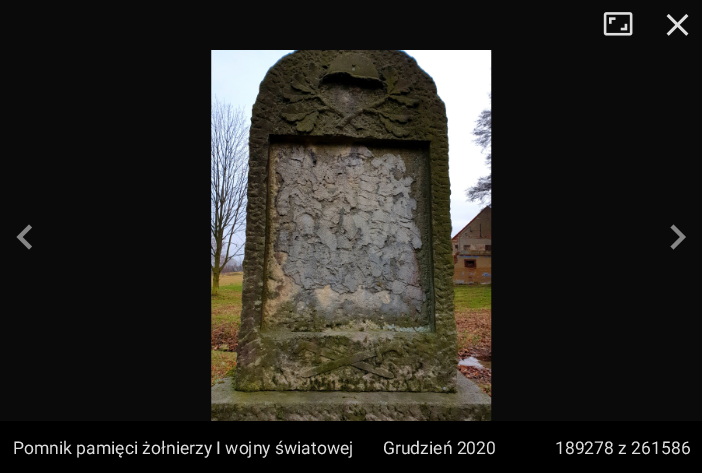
%!PS
<< /PageSize [702 473] >> setpagedevice
/m/moveto load def
/l/rlineto load def
/z/closepath load def
/f/fill load def
/C { dup -16 bitshift 255 div exch dup -8 bitshift 255 and 255 div exch 255 and 255 div setrgbcolor } def
/F { [ exch dup neg 0 0 3 -1 roll 0 0 ] selectfont } def
/T { moveto show } def
/R { rectfill } def
/I { 5 dict begin { /h /w /y /x /name } { exch def } forall
  gsave x y translate w h scale
  w h 8 [w 0 0 h 0 0] name (r) file false 3 colorimage grestore end } def
0 473 translate 1 -1 scale
4 setmiterlimit
16#0A0A0A C
0 0 702 473 R
(1.rgb) 603 12 30 24 I
(2.rgb) 666 14 23 22 I
16#858585 C
32 227.5 m -3 -3 l -12.5 12.5 l 12.5 12.5 l 3 -3 l -9.5 -9.5 l z f
(3.rgb) 211 50 281 371 I
673.5 224.5 m -3 3 l 9.5 9.5 l -9.5 9.5 l 3 3 l 12.5 -12.5 l z f
16#000000 C
0 421 702 52 R
/Roboto-Regular 17.5 F
16#DEDEDE C
(Pomnik pamięci żołnierzy I wojny światowej) 13 454 T
(Grudzień 2020) 383 454 T
(189278 z 261586) 555 454 T
showpage
